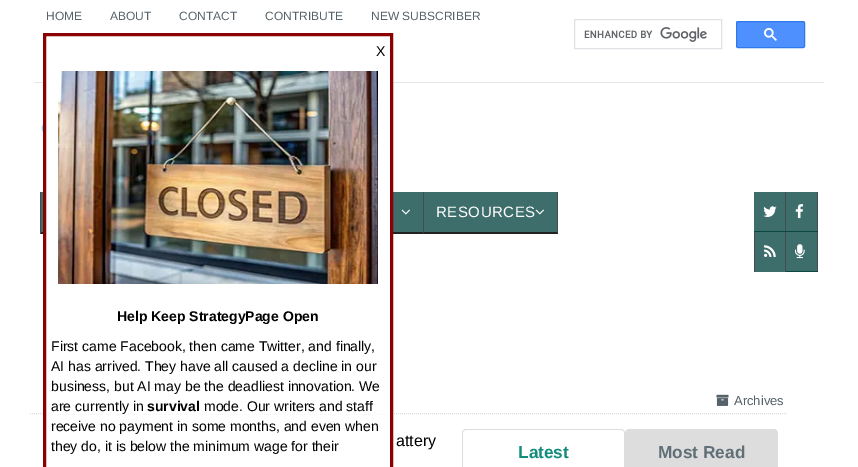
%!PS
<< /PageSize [858 467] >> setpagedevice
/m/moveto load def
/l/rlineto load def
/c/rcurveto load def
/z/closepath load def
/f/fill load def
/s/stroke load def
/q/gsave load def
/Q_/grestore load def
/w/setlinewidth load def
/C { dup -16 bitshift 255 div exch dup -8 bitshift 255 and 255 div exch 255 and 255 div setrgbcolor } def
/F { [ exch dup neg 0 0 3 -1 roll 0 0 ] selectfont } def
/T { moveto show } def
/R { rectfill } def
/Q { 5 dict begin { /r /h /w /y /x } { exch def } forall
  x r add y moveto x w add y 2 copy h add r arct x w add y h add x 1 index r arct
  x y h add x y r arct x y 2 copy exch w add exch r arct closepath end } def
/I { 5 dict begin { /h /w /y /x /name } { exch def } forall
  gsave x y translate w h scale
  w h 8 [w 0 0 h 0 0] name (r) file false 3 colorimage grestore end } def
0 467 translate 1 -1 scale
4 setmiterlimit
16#FFFFFF C
0 0 858 467 R
16#E6E6E6 C
34 82 790 1 R
/LiberationSans-Regular 12 F
16#556269 C
(HOME) 46 20 T
(ABOUT) 110 20 T
(CONTACT) 179 20 T
(CONTRIBUTE) 265 20 T
(NEW SUBSCRIBER) 371 20 T
16#DFE1E5 C
574.5 19.5 147 29 rectstroke
(1.rgb) 584 27 123 15 I
16#4D90FE C
736.5 21.5 68 26 1.5 Q q f Q_
16#3079ED C
s
(2.rgb) 764 28 13 13 I
(3.rgb) 41 123 2 10 I
16#3E6E6C C
41 192 2 40 R
16#222222 C
123 234 m -83 0 l 1 -2 l 81 0 l z f
16#434C51 C
40 234 m 0 -42 l 1 0 l 0 40 l z f
16#3E6E6C C
393 192 165 42 R
16#434C51 C
424 192 m 0 42 l -1 -2 l 0 -40 l z f
16#222222 C
424 234 m -90 0 l 0 -2 l 89 0 l z f
(4.rgb) 401 209 9 6 I
16#434C51 C
558 192 m 0 42 l -1 -2 l 0 -40 l z f
16#222222 C
558 234 m -134 0 l 0 -2 l 133 0 l z f
/LiberationSans-Regular 15 F
16#FFFFFF C
436 217 m .5 0 (RESOURCES) ashow
(4.rgb) 535 209 9 6 I
16#3E6E6C C
754 192 31 39 R
16#434C51 C
785 192 1 80 R
16#094840 C
754 231 32 1 R
(5.rgb) 763 206 14 11 I
16#3E6E6C C
786 192 31 39 R
16#434C51 C
817 192 1 80 R
16#094840 C
786 231 32 1 R
(6.rgb) 795 204 9 15 I
16#3E6E6C C
755 232 30 40 R
16#434C51 C
754 232 1 40 R
(7.rgb) 764 245 12 12 I
16#3E6E6C C
786 232 31 39 R
16#094840 C
786 271 32 1 R
(8.rgb) 795 244 10 15 I
16#DEDEDE C
[1 1] 0 setdash
30 413.5 m 758 0 l s
16#FFFFFF C
46 82 344 332 R
16#8B0000 C
3 w
[] 0 setdash
44.5 34.5 347 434 rectstroke
/LiberationSans-Regular 14 F
16#000000 C
(X) 376 56 T
(9.rgb) 58 71 320 213 I
/LiberationSans-Bold 14 F
(Help Keep StrategyPage Open) 117 321 T
/LiberationSans-Regular 14 F
(First came Facebook, then came Twitter, and finally,) 51 351 T
(AI has arrived. They have all caused a decline in our) 51 371 T
(business, but AI may be the deadliest innovation. We) 51 391 T
(are currently in) 51 411 T
/LiberationSans-Bold 14 F
(survival) 147 411 T
/LiberationSans-Regular 14 F
(mode. Our writers and staff) 204 411 T
(receive no payment in some months, and even when) 51 431 T
(they do, it is below the minimum wage for their) 51 451 T
(10.rgb) 716 394 13 12 I
/LiberationSans-Regular 13 F
16#556269 C
(Archives) 734 405 T
/LiberationSans-Regular 16 F
16#000000 C
(attery) 396 446 T
16#DDDDDD C
466 429 m 155 0 l 2 0 4 2 4 4 c 0 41 l -163 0 l 0 -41 l 0 -2 2 -4 4 -4 c z 466 430 m 155 0 l 2 0 3 1 3 3 c 0 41 l -161 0 l 0 -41 l 0 -2 1 -3 3 -3 c z eofill
/LiberationSans-Bold 17.25 F
16#128C7D C
(Latest) 518 458 T
16#DDDDDD C
629 429 m 145 0 l 2 0 4 2 4 4 c 0 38 l -153 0 l 0 -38 l 0 -2 2 -4 4 -4 c z f
16#616F77 C
(Most Read) 658 458 T
showpage
